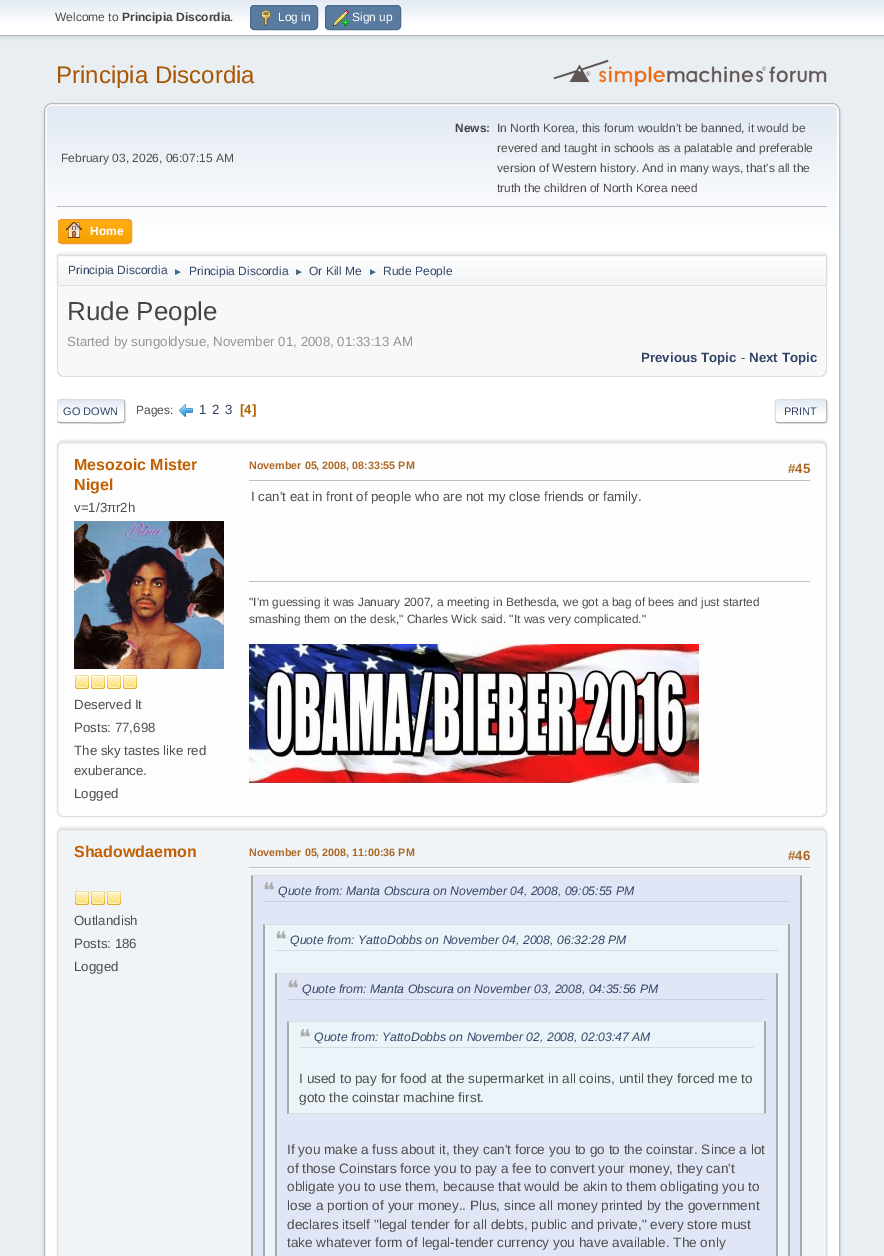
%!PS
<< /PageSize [884 1256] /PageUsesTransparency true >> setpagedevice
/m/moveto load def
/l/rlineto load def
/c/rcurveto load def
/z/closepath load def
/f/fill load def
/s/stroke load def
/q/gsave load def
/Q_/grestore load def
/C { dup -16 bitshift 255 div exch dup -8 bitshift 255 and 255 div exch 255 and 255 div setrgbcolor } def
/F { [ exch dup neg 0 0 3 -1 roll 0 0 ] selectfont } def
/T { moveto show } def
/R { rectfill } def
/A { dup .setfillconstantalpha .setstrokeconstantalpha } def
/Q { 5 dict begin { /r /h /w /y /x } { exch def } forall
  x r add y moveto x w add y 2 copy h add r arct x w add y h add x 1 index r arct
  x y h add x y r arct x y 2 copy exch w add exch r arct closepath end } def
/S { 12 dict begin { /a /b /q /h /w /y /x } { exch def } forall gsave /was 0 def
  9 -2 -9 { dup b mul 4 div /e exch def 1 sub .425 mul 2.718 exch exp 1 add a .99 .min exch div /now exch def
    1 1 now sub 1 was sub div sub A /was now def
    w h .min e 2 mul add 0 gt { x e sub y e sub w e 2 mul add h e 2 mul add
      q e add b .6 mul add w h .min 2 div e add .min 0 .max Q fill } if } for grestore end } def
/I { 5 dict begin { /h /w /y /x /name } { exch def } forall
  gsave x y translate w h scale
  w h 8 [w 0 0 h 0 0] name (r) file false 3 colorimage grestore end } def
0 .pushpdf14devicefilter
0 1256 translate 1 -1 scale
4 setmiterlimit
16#E9EEF2 C
0 0 884 1256 R
16#000000 C
0 1 884 36 0 2 .16 S
q 0 0 m 884 0 l 0 35 l -884 0 l z clip newpath
<< /ShadingType 2 /ColorSpace /DeviceRGB /Coords [442 0 442 35] /Extend [true true] /Function << /FunctionType 3 /Domain [0 1] /Functions [<< /FunctionType 2 /Domain [0 1] /C0 [.886 .914 .953] /C1 [1 1 1] /N 1 >> << /FunctionType 2 /Domain [0 1] /C0 [1 1 1] /C1 [1 1 1] /N 1 >>] /Bounds [.7] /Encode [0 1 0 1] >> >> shfill Q_
16#BBBBBB C
0 35 884 1 R
/LiberationSans-Regular 12 F
16#4D4D4D C
(Welcome to) 55 21 T
/LiberationSans-Bold 12 F
16#444444 C
(Principia Discordia) 122 21 T
/LiberationSans-Regular 12 F
16#4D4D4D C
(.) 230 21 T
16#597B9F C
250.5 5.5 67 24 3.5 Q q f Q_
16#4A6B8C C
s
(1.rgb) 261 10 10 16 I
16#FFFFFF C
(Log in) 278 21 T
16#597B9F C
325.5 5.5 75 24 3.5 Q q f Q_
16#4A6B8C C
s
(2.rgb) 333 10 16 16 I
16#FFFFFF C
(Sign up) 352 21 T
/LiberationSans-Regular 24 F
16#A85400 C
(Principia Discordia) 56 83 T
(3.rgb) 553 59 274 28 I
16#000000 C
44 105 796 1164 8 1.5 .14 S
16#FFFFFF C
44.5 103.5 795 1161 7.5 Q q f Q_
16#B8B8B8 C
s
q 53 106 m 778 0 l 3.5 0 6 2.5 6 6 c 0 176 l -790 0 l 0 -176 l 0 -3.5 2.5 -6 6 -6 c z clip newpath
<< /ShadingType 2 /ColorSpace /DeviceRGB /Coords [442 106 442 288] /Extend [true true] /Function << /FunctionType 3 /Domain [0 1] /Functions [<< /FunctionType 2 /Domain [0 1] /C0 [.886 .914 .953] /C1 [1 1 1] /N 1 >> << /FunctionType 2 /Domain [0 1] /C0 [1 1 1] /C1 [1 1 1] /N 1 >>] /Bounds [.7] /Encode [0 1 0 1] >> >> shfill Q_
16#BBBBBB C
57 206 770 1 R
/LiberationSans-Regular 12 F
16#4D4D4D C
(February 03, 2026, 06:07:15 AM) 61 162 T
/LiberationSans-Bold 12 F
16#444444 C
(News:) 455 132 T
/LiberationSans-Regular 12 F
16#4D4D4D C
(In North Korea, this forum wouldn't be banned, it would be) 497 132 T
(revered and taught in schools as a palatable and preferable) 497 152 T
(version of Western history. And in many ways, that's all the) 497 172 T
(truth the children of North Korea need) 497 192 T
q
58 219 74 25 4 Q clip newpath
q 58 220 m 74 0 l 0 23 l -74 0 l z clip newpath
<< /ShadingType 2 /ColorSpace /DeviceRGB /Coords [95 220 95 243] /Extend [true true] /Function << /FunctionType 2 /Domain [0 1] /C0 [1 .682 .078] /C1 [.961 .631 0] /N 1 >> >> shfill Q_
Q_
16#F49A3A C
58.5 219.5 73 24 3.5 Q s
(4.rgb) 66 222 16 16 I
/LiberationSans-Bold 12 F
16#FFFFFF C
(Home) 90 235 T
16#000000 C
57 253 770 31 2 1 .08 S
q
57 255 770 31 2 Q clip newpath
q 57 256 m 770 0 l 0 29 l -770 0 l z clip newpath
<< /ShadingType 2 /ColorSpace /DeviceRGB /Coords [442 256 442 285] /Extend [true true] /Function << /FunctionType 3 /Domain [0 1] /Functions [<< /FunctionType 2 /Domain [0 1] /C0 [1 1 1] /C1 [.945 .953 .961] /N 1 >> << /FunctionType 2 /Domain [0 1] /C0 [.945 .953 .961] /C1 [.945 .953 .961] /N 1 >>] /Bounds [.95] /Encode [0 1 0 1] >> >> shfill Q_
Q_
16#DDDDDD C
57.5 255.5 769 30 1.5 Q s
/LiberationSans-Regular 12 F
16#334466 C
(Principia Discordia) 68 274 T
/LiberationSans-Regular 10 F
16#3F6B8C C
(►) 173 275 T
/LiberationSans-Regular 12 F
16#334466 C
(Principia Discordia) 189 275 T
/LiberationSans-Regular 10 F
16#3F6B8C C
(►) 294 275 T
/LiberationSans-Regular 12 F
16#334466 C
(Or Kill Me) 309 275 T
/LiberationSans-Regular 10 F
16#3F6B8C C
(►) 368 275 T
/LiberationSans-Regular 12 F
16#334466 C
(Rude People) 383 275 T
16#F8F8F8 C
57 286 m 770 0 l 0 84 l 0 4 -3 7 -7 7 c -756 0 l -4 0 -7 -3 -7 -7 c z f
16#DDDDDD C
57 286 m 770 0 l 0 84 l 0 4 -3 7 -7 7 c -756 0 l -4 0 -7 -3 -7 -7 c z 58 286 m 768 0 l 0 84 l 0 3 -3 6 -6 6 c -756 0 l -3 0 -6 -3 -6 -6 c z eofill
/LiberationSans-Regular 26 F
16#444444 C
(Rude People) 67 320 T
/LiberationSans-Regular 13.3 F
16#959595 C
(Started by sungoldysue, November 01, 2008, 01:33:13 AM) 67 346 T
/LiberationSans-Bold 13.3 F
16#334466 C
(Previous Topic) 641 362 T
/LiberationSans-Regular 13.3 F
16#4D4D4D C
(-) 741 362 T
/LiberationSans-Bold 13.3 F
16#334466 C
(Next Topic) 749 362 T
16#DDDDDD C
58 400 68 24 3 .5 .57 S
q
57 399 68 24 3 Q clip newpath
q 57 400 m 68 0 l 0 22 l -68 0 l z clip newpath
<< /ShadingType 2 /ColorSpace /DeviceRGB /Coords [91 400 91 422] /Extend [true true] /Function << /FunctionType 3 /Domain [0 1] /Functions [<< /FunctionType 2 /Domain [0 1] /C0 [.886 .914 .953] /C1 [1 1 1] /N 1 >> << /FunctionType 2 /Domain [0 1] /C0 [1 1 1] /C1 [1 1 1] /N 1 >>] /Bounds [.7] /Encode [0 1 0 1] >> >> shfill Q_
q 57 422 m 68 0 l 0 1 l -68 0 l z clip newpath
<< /ShadingType 2 /ColorSpace /DeviceRGB /Coords [91 422 91 444] /Extend [true true] /Function << /FunctionType 3 /Domain [0 1] /Functions [<< /FunctionType 2 /Domain [0 1] /C0 [.886 .914 .953] /C1 [1 1 1] /N 1 >> << /FunctionType 2 /Domain [0 1] /C0 [1 1 1] /C1 [1 1 1] /N 1 >>] /Bounds [.7] /Encode [0 1 0 1] >> >> shfill Q_
Q_
16#BBBBBB C
124 400 m 0 .5 .5 1.5 .5 2 c 0 18 l 0 .5 -.5 1.5 -.5 2 c s
16#AAAAAA C
124 422 m -.5 0 l -2 1.5 -47 .5 -53 .5 c -10.5 0 l -2 -.5 l s
q
57 392 770 38 rectclip
16#DDDDDD C
58 422 m -1.5 -2 -.5 -6 -.5 -8 c 0 -16.5 -3.5 -14.5 13 -14.5 c 51.5 0 l 2 .5 l s
Q_
/LiberationSans-Regular 11 F
16#334466 C
(GO DOWN) 63 415 T
/LiberationSans-Regular 12 F
16#4D4D4D C
(Pages:) 136 414 T
(5.rgb) 179 404 14 13 I
/LiberationSans-Regular 13.3 F
16#334466 C
(1) 199 414 T
(2) 212 414 T
(3) 225 414 T
/LiberationSans-Bold 13.3 F
16#B46100 C
([4]) 240 414 T
q
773 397 m 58 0 l 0 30 l -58 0 l z 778 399 m 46 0 l 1.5 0 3 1.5 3 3 c 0 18 l 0 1.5 -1.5 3 -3 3 c -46 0 l -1.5 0 -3 -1.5 -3 -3 c 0 -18 l 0 -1.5 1.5 -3 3 -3 c z eoclip newpath
16#DDDDDD C
776 400 52 24 3 .5 .57 S
Q_
16#FFFFFF C
775 399 52 24 3 Q f
q
775 399 52 24 3 Q clip newpath
q 775 400 m 52 0 l 0 22 l -52 0 l z clip newpath
<< /ShadingType 2 /ColorSpace /DeviceRGB /Coords [801 400 801 422] /Extend [true true] /Function << /FunctionType 3 /Domain [0 1] /Functions [<< /FunctionType 2 /Domain [0 1] /C0 [.886 .914 .953] /C1 [1 1 1] /N 1 >> << /FunctionType 2 /Domain [0 1] /C0 [1 1 1] /C1 [1 1 1] /N 1 >>] /Bounds [.7] /Encode [0 1 0 1] >> >> shfill Q_
Q_
16#BBBBBB C
826 400 m 0 .5 .5 1.5 .5 2 c 0 18 l 0 .5 -.5 1.5 -.5 2 c s
16#AAAAAA C
826 422 m -2 .5 l -46 0 l -2 -.5 l s
16#DDDDDD C
776 422 m -1.5 -2 -.5 -9 -.5 -11 c 0 -12.5 -2 -11.5 10 -11.5 c 15.5 0 l 3.5 0 22.5 -1 24.5 .5 c .5 0 l s
/LiberationSans-Regular 11 F
16#334466 C
(PRINT) 784 415 T
16#000000 C
57 440 770 375 6 1 .1 S
16#FDFDFD C
57.5 442.5 769 374 5.5 Q q f Q_
16#DDDDDD C
s
/LiberationSans-Bold 16 F
16#C06002 C
(Mesozoic Mister) 74 470 T
(Nigel) 74 490 T
/LiberationSans-Regular 13.3 F
16#4D4D4D C
(v=1/3πr2h) 74 512 T
(6.rgb) 74 521 150 148 I
(7.rgb) 75 675 14 14 I
(7.rgb) 91 675 14 14 I
(7.rgb) 107 675 14 14 I
(7.rgb) 123 675 14 14 I
(Deserved It) 74 709 T
(Posts: 77,698) 74 732 T
(The sky tastes like red) 74 755 T
(exuberance.) 74 775 T
(Logged) 74 798 T
/LiberationSans-Bold 10.75 F
16#AD6825 C
(November 05, 2008, 08:33:55 PM) 249 469 T
/LiberationSans-Bold 13.3 F
(#45) 788 473 T
16#BFBFBF C
249 480 561 1 R
/LiberationSans-Regular 13.3 F
16#4D4D4D C
(I can't eat in front of people who are not my close friends or family.) 251 501 T
16#BFBFBF C
249 581 561 1 R
/LiberationSans-Regular 12 F
16#4D4D4D C
("I'm guessing it was January 2007, a meeting in Bethesda, we got a bag of bees and just started) 249 606 T
(smashing them on the desk," Charles Wick said. "It was very complicated.") 249 623 T
(8.rgb) 249 644 450 139 I
16#000000 C
57 827 770 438 6 1 .1 S
16#F0F4F7 C
57.5 829.5 769 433 5.5 Q q f Q_
16#DDDDDD C
s
/LiberationSans-Bold 16 F
16#C06002 C
(Shadowdaemon) 74 857 T
(9.rgb) 75 891 14 14 I
(9.rgb) 91 891 14 14 I
(9.rgb) 107 891 14 14 I
/LiberationSans-Regular 13.3 F
16#4D4D4D C
(Outlandish) 74 925 T
(Posts: 186) 74 948 T
(Logged) 74 971 T
/LiberationSans-Bold 10.75 F
16#AD6825 C
(November 05, 2008, 11:00:36 PM) 249 856 T
/LiberationSans-Bold 13.3 F
(#46) 788 860 T
16#FFFFFF C
249 868 561 1 R
16#BFBFBF C
249 867 561 1 R
16#E0E6F6 C
253 876 547 380 R
16#D6DFE2 C
251 875 m 551 0 l -2 1 l -547 0 l z f
16#AAAAAA C
802 875 m 0 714 l -2 -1 l 0 -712 l z f
251 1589 m 0 -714 l 2 1 l 0 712 l z f
16#CACFDD C
263 901 527 1 R
/DejaVuSans-Regular 22 F
16#AAAAAA C
(❝) 263 898 T
/LiberationSans-Italic 12.25 F
16#334466 C
(Quote from: Manta Obscura on November 04, 2008, 09:05:55 PM) 278 895 T
16#EBF4F8 C
265 925 523 331 R
16#D6DFE2 C
263 924 m 527 0 l -2 1 l -523 0 l z f
16#AAAAAA C
790 924 m 0 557 l -2 -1 l 0 -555 l z f
263 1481 m 0 -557 l 2 1 l 0 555 l z f
16#D4DCDF C
275 950 503 1 R
/DejaVuSans-Regular 22 F
16#AAAAAA C
(❝) 275 947 T
/LiberationSans-Italic 12.25 F
16#334466 C
(Quote from: YattoDobbs on November 04, 2008, 06:32:28 PM) 290 944 T
16#E0E6F6 C
277 974 499 282 R
16#D6DFE2 C
275 973 m 503 0 l -2 1 l -499 0 l z f
16#AAAAAA C
778 973 m 0 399 l -2 -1 l 0 -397 l z f
275 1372 m 0 -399 l 2 1 l 0 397 l z f
16#CACFDD C
287 999 479 1 R
/DejaVuSans-Regular 22 F
16#AAAAAA C
(❝) 287 996 T
/LiberationSans-Italic 12.25 F
16#334466 C
(Quote from: Manta Obscura on November 03, 2008, 04:35:56 PM) 302 993 T
16#EBF4F8 C
289 1022 475 91 R
16#D6DFE2 C
287 1021 m 479 0 l -2 1 l -475 0 l z f
16#AAAAAA C
766 1021 m 0 93 l -2 -1 l 0 -91 l z f
16#D6DFE2 C
766 1114 m -479 0 l 2 -1 l 475 0 l z f
16#AAAAAA C
287 1114 m 0 -93 l 2 1 l 0 91 l z f
16#D4DCDF C
299 1047 455 1 R
/DejaVuSans-Regular 22 F
16#AAAAAA C
(❝) 299 1045 T
/LiberationSans-Italic 12.25 F
16#334466 C
(Quote from: YattoDobbs on November 02, 2008, 02:03:47 AM) 314 1041 T
/LiberationSans-Regular 13.6 F
16#4D4D4D C
(I used to pay for food at the supermarket in all coins, until they forced me to) 299 1083 T
(goto the coinstar machine first.) 299 1102 T
(If you make a fuss about it, they can't force you to go to the coinstar. Since a lot) 287 1154 T
(of those Coinstars force you to pay a fee to convert your money, they can't) 287 1173 T
(obligate you to use them, because that would be akin to them obligating you to) 287 1191 T
(lose a portion of your money.. Plus, since all money printed by the government) 287 1210 T
(declares itself "legal tender for all debts, public and private," every store must) 287 1229 T
(take whatever form of legal-tender currency you have available. The only) 287 1247 T
.poppdf14devicefilter showpage
